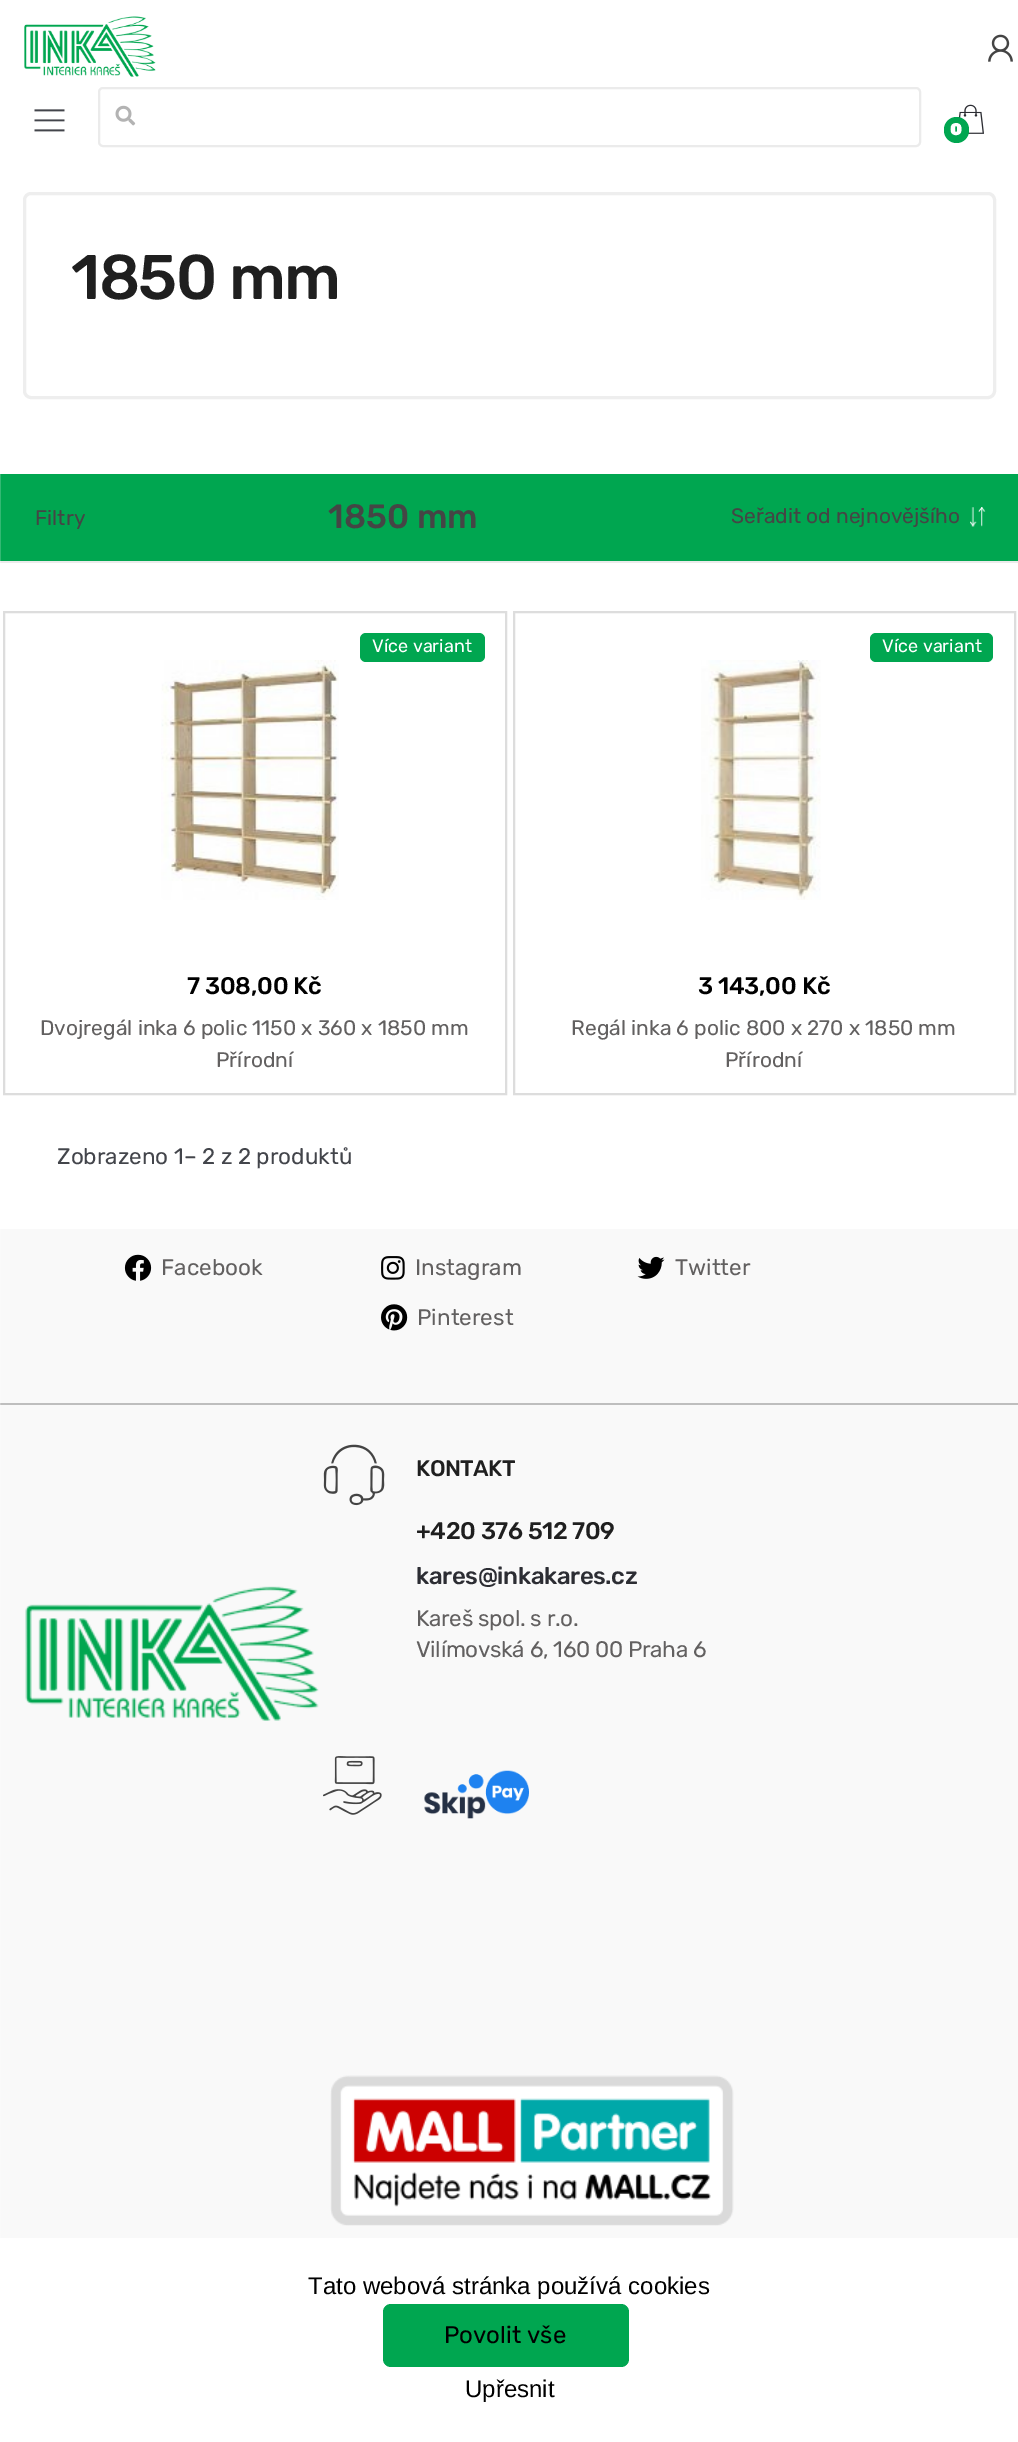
%!PS
<< /PageSize [1018 2442] >> setpagedevice
/m/moveto load def
/f/fill load def
/s/stroke load def
/w/setlinewidth load def
/C { dup -16 bitshift 255 div exch dup -8 bitshift 255 and 255 div exch 255 and 255 div setrgbcolor } def
/F { [ exch dup neg 0 0 3 -1 roll 0 0 ] selectfont } def
/T { moveto show } def
/R { rectfill } def
/Q { 5 dict begin { /r /h /w /y /x } { exch def } forall
  x r add y moveto x w add y 2 copy h add r arct x w add y h add x 1 index r arct
  x y h add x y r arct x y 2 copy exch w add exch r arct closepath end } def
/I { 5 dict begin { /h /w /y /x /name } { exch def } forall
  gsave x y translate w h scale
  w h 8 [w 0 0 h 0 0] name (r) file false 3 colorimage grestore end } def
0 2442 translate 1 -1 scale
4 setmiterlimit
16#FFFFFF C
0 0 1018 2442 R
(1.rgb) 24 16 132 61 I
(2.rgb) 988 34 25 28 I
(3.rgb) 34 109 31 23 I
16#EBEBEB C
2 w
99 88 821 58 4 Q s
(4.rgb) 115 105 21 21 I
(5.rgb) 958 104 26 30 I
16#00A650 C
944 117 25 26 12.5 Q f
/Rubik-Black 17 F
16#FFFFFF C
(0) 950 135 T
16#EEEEEE C
3 w
24.5 193.5 970 204 6.5 Q s
/Rubik-Medium 63 F
16#1F1F1F C
71 299 m -1.5 0 (1850 mm) ashow
16#00A650 C
1 474 1017 87 R
16#33B873 C
0 474 1 89 R
16#EBEBEB C
0 561 1018 2 R
16#EFEFEF C
0 561 1 2 R
/Rubik-Regular 21 F
16#454545 C
(Filtry) 35 525 T
/Rubik-Medium 33.75 F
(1850 mm) 328 528 T
(6.rgb) 970 507 16 20 I
/Rubik-Regular 21 F
(Seřadit od nejnovějšího) 731 523 T
16#DDDDDD C
2 w
4 612 502 482 rectstroke
16#00A650 C
360 633 125 29 6 Q f
/Rubik-Regular 18 F
16#FFFFFF C
(Více variant) 372 652 T
(7.rgb) 161 660 178 240 I
/Rubik-Medium 24 F
16#000000 C
187 994 m -.25 0 (7 308,00 Kč) ashow
/Rubik-Regular 21 F
16#626060 C
(Dvojregál inka 6 polic 1150 x 360 x 1850 mm) 40 1035 T
(Přírodní) 216 1067 T
16#DDDDDD C
514 612 501 482 rectstroke
16#00A650 C
870 633 123 29 6 Q f
/Rubik-Regular 18 F
16#FFFFFF C
(Více variant) 882 652 T
(8.rgb) 701 660 120 240 I
/Rubik-Medium 24 F
16#000000 C
698 994 m -.25 0 (3 143,00 Kč) ashow
/Rubik-Regular 21 F
16#626060 C
(Regál inka 6 polic 800 x 270 x 1850 mm) 571 1035 T
(Přírodní) 725 1067 T
/Rubik-Regular 22.5 F
16#43454B C
(Zobrazeno 1– 2 z 2 produktů) 57 1164 T
16#F9F9F9 C
1 1229 1017 1009 R
16#FAFAFA C
0 1229 1 1009 R
16#BEBEBE C
0 1403 1018 2 R
16#CBCBCB C
0 1403 1 2 R
(9.rgb) 124 1254 28 27 I
16#626060 C
(Facebook) 161 1275 T
(10.rgb) 381 1256 24 24 I
(Instagram) 415 1275 T
(11.rgb) 637 1256 28 23 I
(Twitter) 675 1275 T
(12.rgb) 381 1304 27 27 I
(Pinterest) 417 1325 T
(13.rgb) 25 1586 294 135 I
(14.rgb) 323 1444 62 62 I
/Rubik-Medium 22.5 F
16#1F1F1F C
416 1476 m -.5 0 (KONTAKT) ashow
/Rubik-Medium 24 F
416 1539 m -.4 0 (+420 376 512 709) ashow
16#2C2D33 C
416 1584 m -.4 0 (kares@inkakares.cz) ashow
/Rubik-Regular 22.5 F
16#626060 C
416 1626 m -.35 0 (Kareš spol. s r.o.) ashow
416 1657 m -.35 0 (Vilímovská 6, 160 00 Praha 6) ashow
(15.rgb) 323 1756 59 59 I
(16.rgb) 424 1770 105 49 I
(17.rgb) 330 2075 404 151 I
/LiberationSans-Regular 24 F
16#000000 C
(Tato webová stránka používá cookies) 308 2294 T
16#00A650 C
383 2304 246 63 8 Q f
/Rubik-Regular 24 F
16#000000 C
(Povolit vše) 444 2343 T
/LiberationSans-Regular 24 F
(Upřesnit) 465 2397 T
showpage
